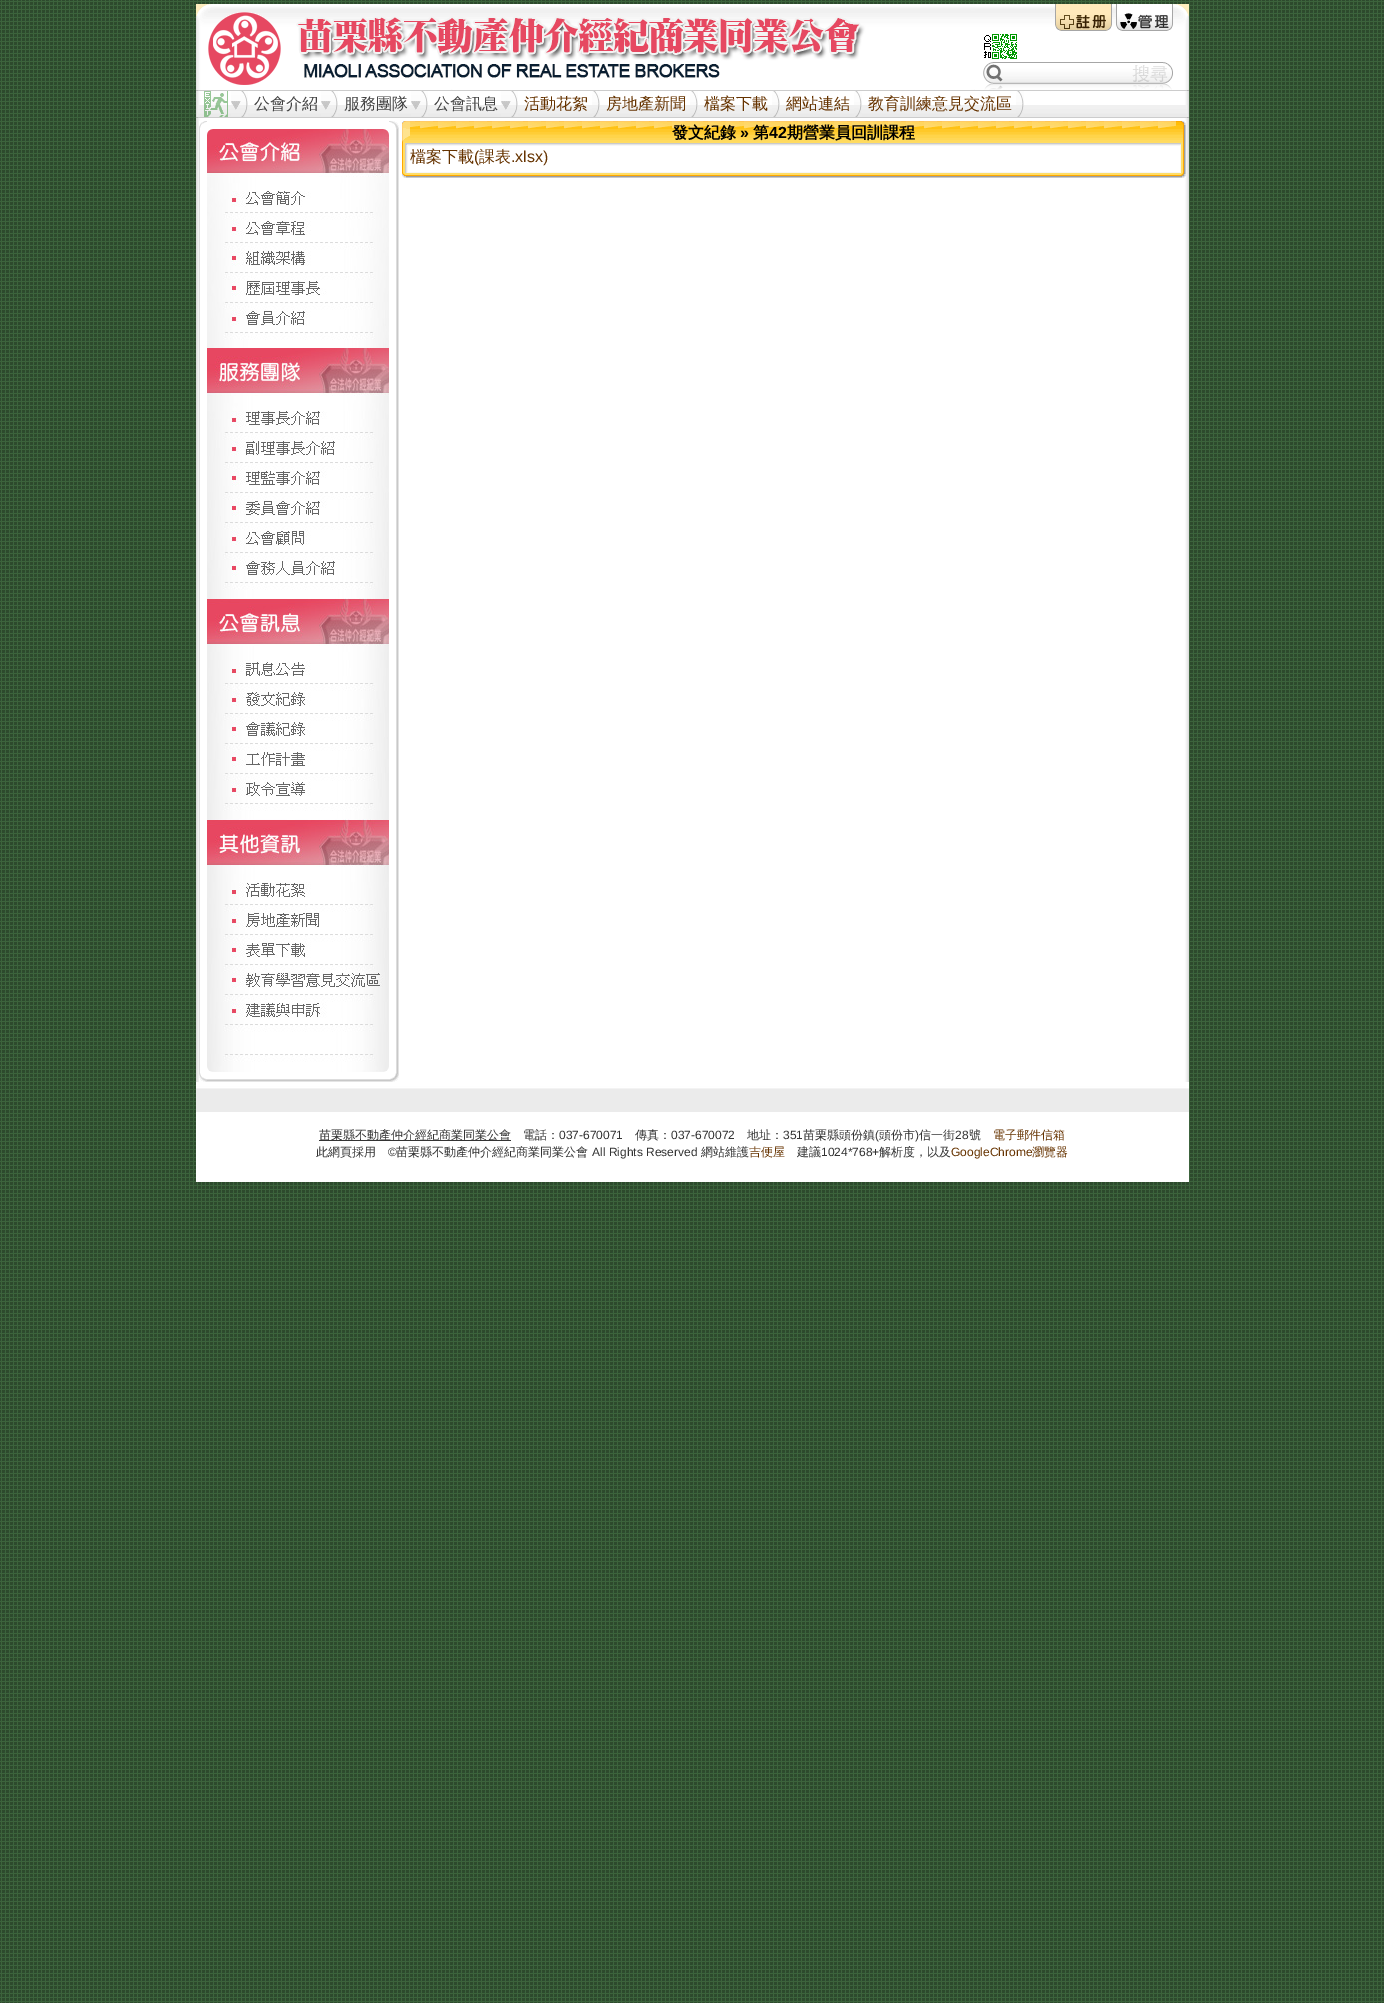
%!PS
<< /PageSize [1384 2003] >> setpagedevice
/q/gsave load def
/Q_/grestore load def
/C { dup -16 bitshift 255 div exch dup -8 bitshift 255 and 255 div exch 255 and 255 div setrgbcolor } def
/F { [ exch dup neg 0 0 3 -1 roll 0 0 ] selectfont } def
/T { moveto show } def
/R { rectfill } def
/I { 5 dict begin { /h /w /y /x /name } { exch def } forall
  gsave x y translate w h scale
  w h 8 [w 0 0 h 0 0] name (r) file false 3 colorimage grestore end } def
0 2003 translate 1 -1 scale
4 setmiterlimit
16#FFFFFF C
0 0 1384 2003 R
(1.rgb) 0 0 1384 2003 I
(2.rgb) 196 91 993 991 I
(3.rgb) 196 4 993 86 I
(4.rgb) 208 11 767 78 I
(5.rgb) 984 34 33 25 I
(6.rgb) 1055 4 57 27 I
(7.rgb) 1116 4 57 27 I
(8.rgb) 196 90 993 1 I
(9.rgb) 196 105 993 13 I
(10.rgb) 231 91 17 26 I
(11.rgb) 204 91 24 26 I
(10.rgb) 321 91 17 26 I
/WenQuanYiZenHei-Medium 16 F
16#444444 C
(公會介紹) 254 109 T
(10.rgb) 411 91 17 26 I
(服務團隊) 344 109 T
(10.rgb) 501 91 17 26 I
(公會訊息) 434 109 T
(12.rgb) 592 91 8 26 I
16#663300 C
(活動花絮) 524 109 T
(12.rgb) 690 91 8 26 I
(房地產新聞) 606 109 T
(12.rgb) 772 91 8 26 I
(檔案下載) 704 109 T
(12.rgb) 854 91 8 26 I
q
786 91 76 27 rectclip
(網站連結) 786 109 T
Q_
(12.rgb) 1016 91 8 26 I
(教育訓練意見交流區) 868 109 T
16#FFFFFF C
199 121 1 8 R
(13.rgb) 199 121 8 8 I
(14.rgb) 389 121 10 8 I
(15.rgb) 199 129 8 943 I
(16.rgb) 389 129 10 943 I
(17.rgb) 207 129 182 54 I
(18.rgb) 207 183 182 29 I
(19.rgb) 207 212 182 30 I
(20.rgb) 207 242 182 30 I
(21.rgb) 207 272 182 30 I
(22.rgb) 207 302 182 30 I
(23.rgb) 207 332 182 71 I
(24.rgb) 207 403 182 29 I
(25.rgb) 207 432 182 30 I
(26.rgb) 207 462 182 30 I
(27.rgb) 207 492 182 30 I
(28.rgb) 207 522 182 30 I
(29.rgb) 207 552 182 30 I
(30.rgb) 207 582 182 70 I
(31.rgb) 207 652 182 31 I
(32.rgb) 207 683 182 30 I
(33.rgb) 207 713 182 30 I
(34.rgb) 207 743 182 30 I
(35.rgb) 207 773 182 30 I
(36.rgb) 207 803 182 71 I
(37.rgb) 207 874 182 30 I
(38.rgb) 207 904 182 30 I
(39.rgb) 207 934 182 30 I
(40.rgb) 207 964 182 30 I
(41.rgb) 207 994 182 30 I
(42.rgb) 207 1024 182 30 I
(43.rgb) 207 1054 182 18 I
(44.rgb) 207 1072 183 10 I
(45.rgb) 199 1072 8 10 I
(46.rgb) 390 1072 9 10 I
(47.rgb) 410 121 766 26 I
(48.rgb) 402 121 8 26 I
/WenQuanYiZenHei-Bold 16 F
16#000000 C
(發文紀錄) 672 138 T
/LiberationSans-Bold 16 F
(») 740 138 T
/WenQuanYiZenHei-Bold 16 F
(第) 753 138 T
/LiberationSans-Bold 16 F
(42) 769 138 T
/WenQuanYiZenHei-Bold 16 F
(期營業員回訓課程) 787 138 T
(49.rgb) 1176 121 10 26 I
(50.rgb) 402 147 8 21 I
(51.rgb) 1176 147 10 21 I
/WenQuanYiZenHei-Medium 16 F
16#663300 C
(檔案下載) 410 162 T
/LiberationSans-Regular 16 F
(\() 474 162 T
/WenQuanYiZenHei-Medium 16 F
(課表) 479 162 T
/LiberationSans-Regular 16 F
(.xlsx\)) 511 162 T
(52.rgb) 408 168 772 10 I
(53.rgb) 402 168 6 10 I
(54.rgb) 1180 168 6 10 I
(55.rgb) 196 1082 993 100 I
16#333333 C
319 1140 192 1 R
/WenQuanYiZenHei-Medium 12 F
(苗栗縣不動產仲介經紀商業同業公會) 319 1139 T
(電話：) 523 1139 T
/LiberationSans-Regular 12 F
(037-670071) 559 1139 T
/WenQuanYiZenHei-Medium 12 F
(傳真：) 635 1139 T
/LiberationSans-Regular 12 F
(037-670072) 671 1139 T
/WenQuanYiZenHei-Medium 12 F
(地址：) 747 1139 T
/LiberationSans-Regular 12 F
(351) 783 1139 T
/WenQuanYiZenHei-Medium 12 F
(苗栗縣頭份鎮) 803 1139 T
/LiberationSans-Regular 12 F
(\() 875 1139 T
/WenQuanYiZenHei-Medium 12 F
(頭份市) 879 1139 T
/LiberationSans-Regular 12 F
(\)) 915 1139 T
/WenQuanYiZenHei-Medium 12 F
(信一街) 919 1139 T
/LiberationSans-Regular 12 F
(28) 955 1139 T
/WenQuanYiZenHei-Medium 12 F
(號) 969 1139 T
16#663300 C
(電子郵件信箱) 993 1139 T
16#333333 C
(此網頁採用) 316 1156 T
/LiberationSans-Regular 12 F
(©) 388 1156 T
/WenQuanYiZenHei-Medium 12 F
(苗栗縣不動產仲介經紀商業同業公會) 396 1156 T
/LiberationSans-Regular 12 F
(All Rights Reserved) 592 1156 T
/WenQuanYiZenHei-Medium 12 F
(網站維護) 701 1156 T
16#663300 C
(吉便屋) 749 1156 T
16#333333 C
(建議) 797 1156 T
/LiberationSans-Regular 12 F
(1024*768+) 821 1156 T
/WenQuanYiZenHei-Medium 12 F
(解析度，以及) 879 1156 T
/LiberationSans-Regular 12 F
16#663300 C
(GoogleChrome) 951 1156 T
/WenQuanYiZenHei-Medium 12 F
(瀏覽器) 1032 1156 T
showpage
